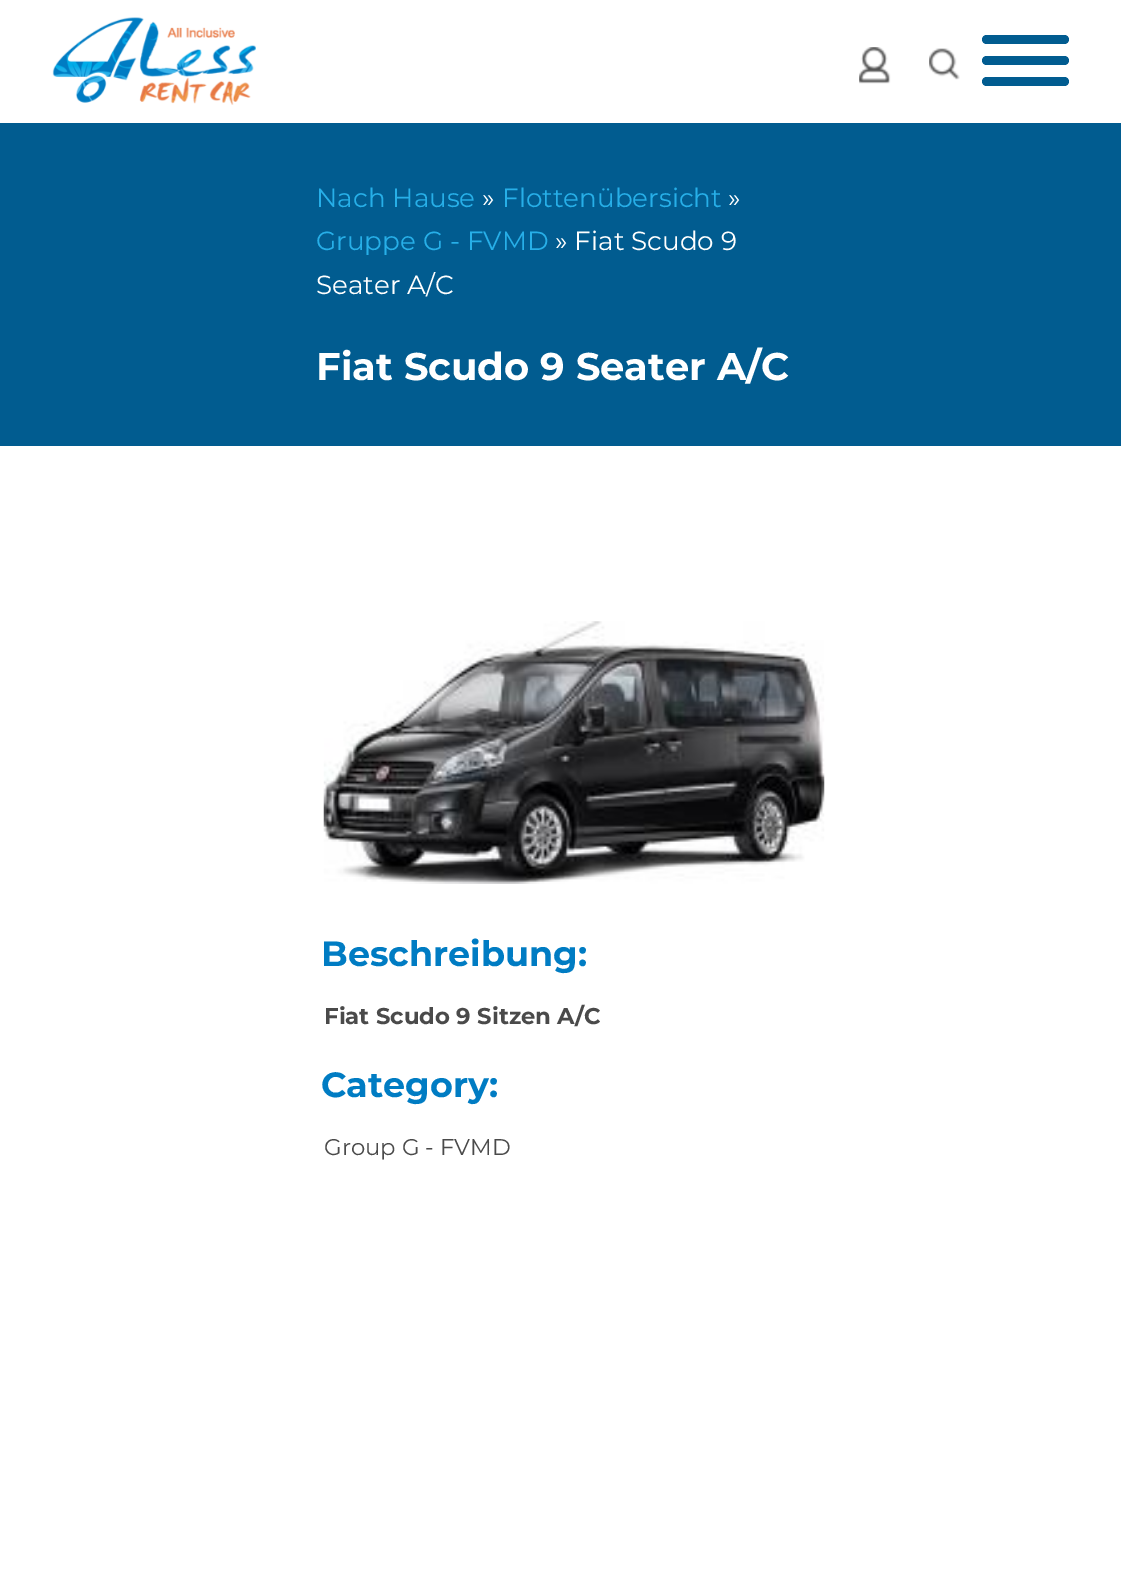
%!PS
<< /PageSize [1121 1588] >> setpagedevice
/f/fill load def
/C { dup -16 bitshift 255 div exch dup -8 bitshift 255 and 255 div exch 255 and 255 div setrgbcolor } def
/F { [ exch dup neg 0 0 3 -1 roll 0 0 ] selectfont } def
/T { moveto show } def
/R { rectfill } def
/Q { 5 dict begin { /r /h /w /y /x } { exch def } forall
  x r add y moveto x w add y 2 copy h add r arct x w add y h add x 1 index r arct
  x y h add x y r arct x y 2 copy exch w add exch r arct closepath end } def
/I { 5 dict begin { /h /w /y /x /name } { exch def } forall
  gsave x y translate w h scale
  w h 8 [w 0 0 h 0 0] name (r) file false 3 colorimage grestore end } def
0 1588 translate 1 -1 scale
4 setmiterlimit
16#FFFFFF C
0 0 1121 1588 R
(1.rgb) 52 17 204 88 I
(2.rgb) 859 47 32 37 I
(3.rgb) 929 48 31 32 I
16#015C90 C
982 35 87 9 4.5 Q f
982 56 87 9 4.5 Q f
982 77 87 9 4.5 Q f
0 123 1121 323 R
/Montserrat-Regular 26.25 F
16#27AFE8 C
(Nach Hause) 316 207 T
16#FFFFFF C
(») 482 207 T
16#27AFE8 C
(Flottenübersicht) 502 207 T
16#FFFFFF C
(») 728 207 T
16#27AFE8 C
(Gruppe G - FVMD) 316 250 T
16#FFFFFF C
(» Fiat Scudo 9) 555 250 T
(Seater A/C) 316 294 T
/Montserrat-Bold 38.5 F
(Fiat Scudo 9 Seater A/C) 316 380 T
(4.rgb) 323 621 502 263 I
/Montserrat-Bold 35 F
16#007CC3 C
(Beschreibung:) 321 966 T
/Montserrat-Bold 22.75 F
16#4A4A4A C
(Fiat Scudo 9 Sitzen A/C) 324 1024 T
/Montserrat-Bold 35 F
16#007CC3 C
(Category:) 321 1097 T
/Montserrat-Regular 22.75 F
16#4A4A4A C
(Group G - FVMD) 324 1155 T
showpage
